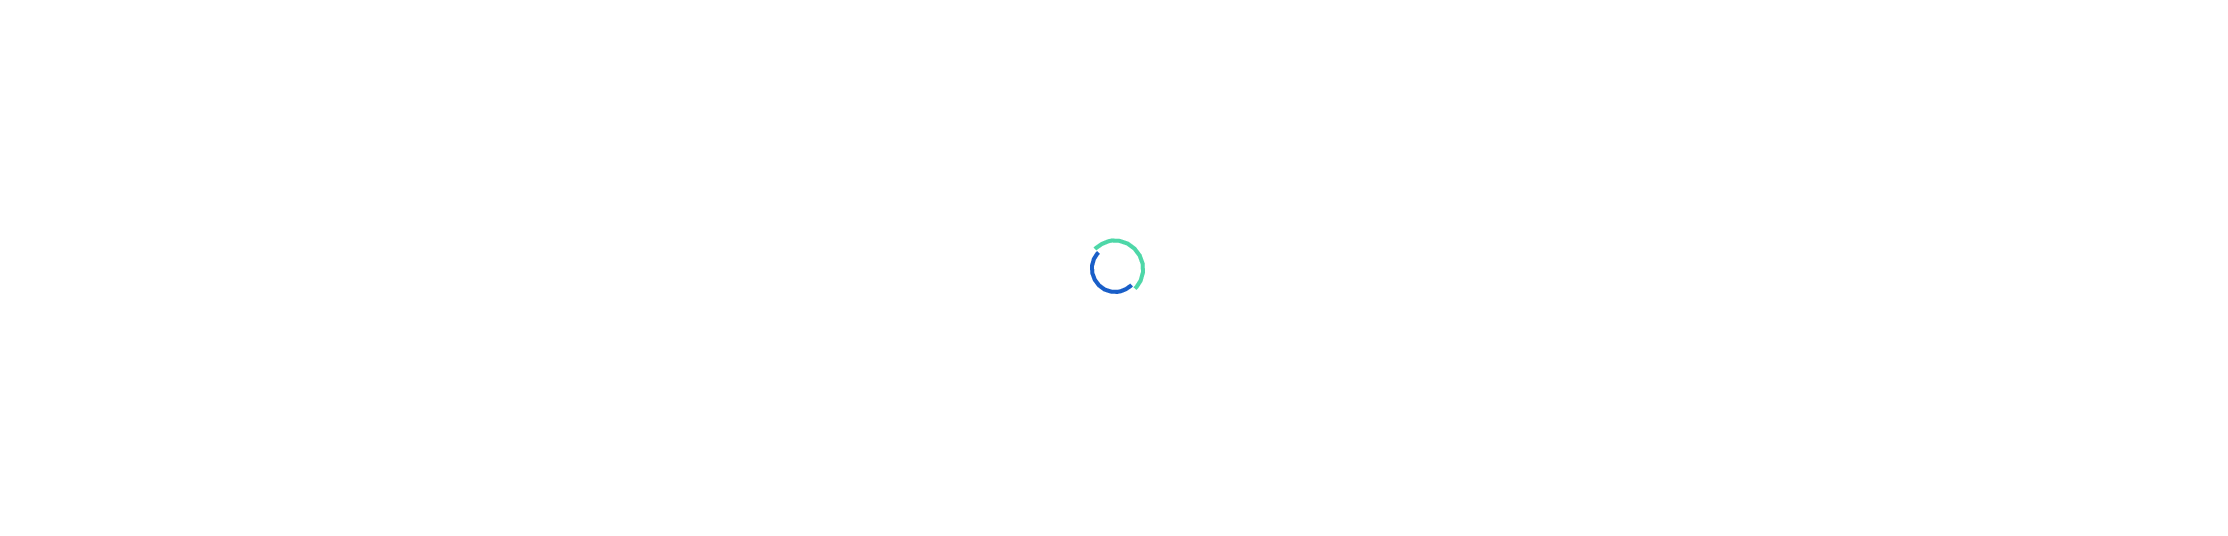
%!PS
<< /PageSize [2228 536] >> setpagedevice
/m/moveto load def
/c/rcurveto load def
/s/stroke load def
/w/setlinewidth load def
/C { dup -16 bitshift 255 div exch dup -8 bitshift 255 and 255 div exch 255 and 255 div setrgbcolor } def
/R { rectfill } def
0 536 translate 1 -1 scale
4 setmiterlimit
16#FFFFFF C
0 0 2228 536 R
16#4ED7A8 C
3.8 w
1095 249 m 4 -4 9 -6.5 14.5 -8 c 27 -5 45 28 25.5 47.5 c s
16#195EC8 C
1131.5 285 m -3.5 3.5 -7.5 5.5 -12 6.5 c -22 4.5 -37 -23 -21 -39 c 1131.5 285 m -3.5 3.5 -7.5 5.5 -12 6.5 c -22 4.5 -37 -23 -21 -39 c s
showpage
